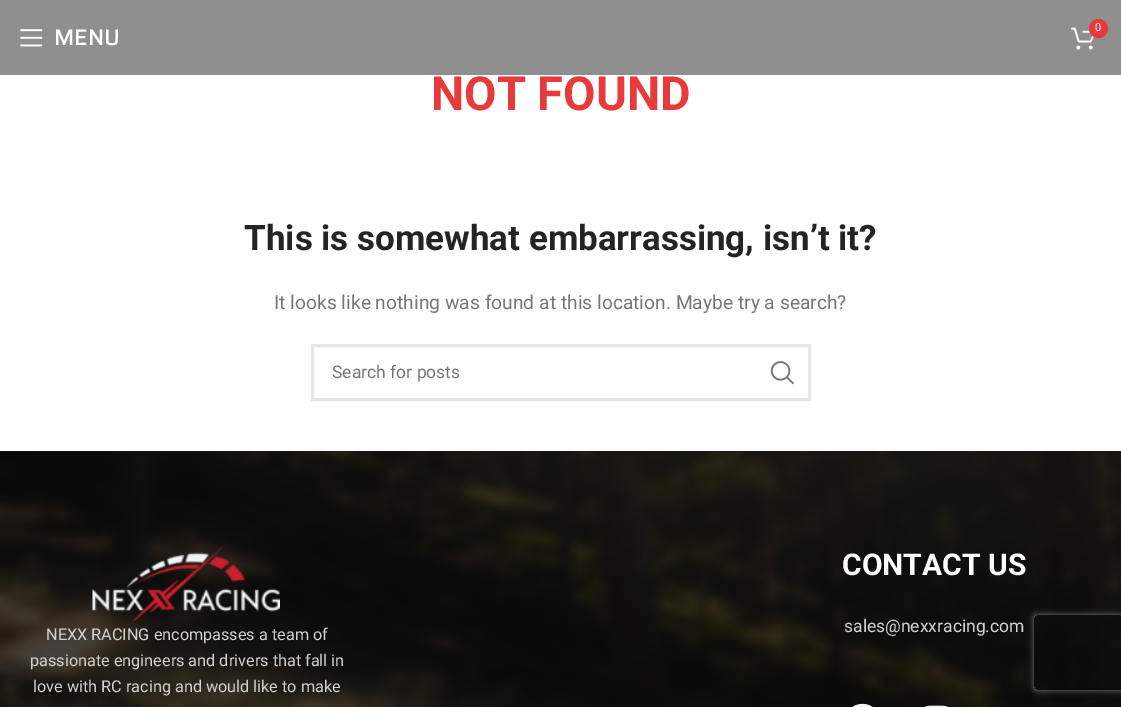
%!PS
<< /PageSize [1121 707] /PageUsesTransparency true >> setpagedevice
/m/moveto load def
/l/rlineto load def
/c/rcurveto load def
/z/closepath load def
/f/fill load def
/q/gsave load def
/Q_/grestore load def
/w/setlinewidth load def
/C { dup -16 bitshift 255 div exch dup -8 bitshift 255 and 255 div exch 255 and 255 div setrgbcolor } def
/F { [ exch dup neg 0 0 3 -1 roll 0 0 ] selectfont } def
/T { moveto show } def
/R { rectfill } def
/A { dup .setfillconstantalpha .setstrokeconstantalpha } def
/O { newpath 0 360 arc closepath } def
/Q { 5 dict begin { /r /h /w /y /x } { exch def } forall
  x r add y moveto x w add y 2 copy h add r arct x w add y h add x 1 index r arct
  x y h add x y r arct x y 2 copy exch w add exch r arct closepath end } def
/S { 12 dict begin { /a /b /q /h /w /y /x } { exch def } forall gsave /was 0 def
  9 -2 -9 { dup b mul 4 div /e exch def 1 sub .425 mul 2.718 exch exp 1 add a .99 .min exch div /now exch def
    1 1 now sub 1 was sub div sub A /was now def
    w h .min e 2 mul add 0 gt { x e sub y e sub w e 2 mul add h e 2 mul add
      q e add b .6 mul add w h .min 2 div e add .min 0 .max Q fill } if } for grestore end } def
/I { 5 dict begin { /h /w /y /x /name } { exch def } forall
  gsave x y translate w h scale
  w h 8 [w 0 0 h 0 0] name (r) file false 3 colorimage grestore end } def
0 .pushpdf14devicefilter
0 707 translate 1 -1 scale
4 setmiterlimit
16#FFFFFF C
0 0 1121 707 R
16#8F8F8F C
0 0 1121 75 R
(1.rgb) 1071 27 23 23 I
16#E83A3A C
1098.5 28.5 9.5 O f
/Roboto-Regular 11 F
16#FFFFFF C
(0) 1095 31 T
(2.rgb) 20 29 23 18 I
/Saira-Medium 22.5 F
(MENU) 54 45 T
/Roboto-Bold 47 F
16#E83A3A C
(NOT FOUND) 431 110 T
/Roboto-Bold 35 F
16#242424 C
(This is somewhat embarrassing, isn’t it?) 244 250 T
/Roboto-Regular 19.25 F
16#777777 C
(It looks like nothing was found at this location. Maybe try a search?) 274 309 T
16#E6E6E6 C
3 w
312.5 345.5 497 54 rectstroke
/Roboto-Regular 17.5 F
16#777777 C
(Search for posts) 332 378 T
(3.rgb) 770 361 24 24 I
(4.rgb) 0 451 1121 256 I
/Roboto-Bold 30 F
16#FFFFFF C
(CONTACT US) 842 575 T
/Roboto-Regular 17.5 F
16#D3D2D1 C
(sales@nexxracing.com) 844 632 T
(5.rgb) 852 703 21 4 I
(6.rgb) 924 705 24 2 I
(7.rgb) 92 545 188 77 I
/Roboto-Regular 16.25 F
(NEXX RACING encompasses a team of) 46 640 T
(passionate engineers and drivers that fall in) 30 666 T
(love with RC racing and would like to make) 33 692 T
q
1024 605 m 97 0 l 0 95 l -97 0 l z 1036.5 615 m 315 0 l 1.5 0 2.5 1 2.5 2.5 c 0 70 l 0 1.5 -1 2.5 -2.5 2.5 c -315 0 l -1.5 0 -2.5 -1 -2.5 -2.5 c 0 -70 l 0 -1.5 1 -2.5 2.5 -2.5 c z eoclip newpath
16#808080 C
1034 615 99 75 2.5 3 1 S
Q_
16#000000 C
0 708 1121 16 0 5.5 .14 S
.poppdf14devicefilter showpage
